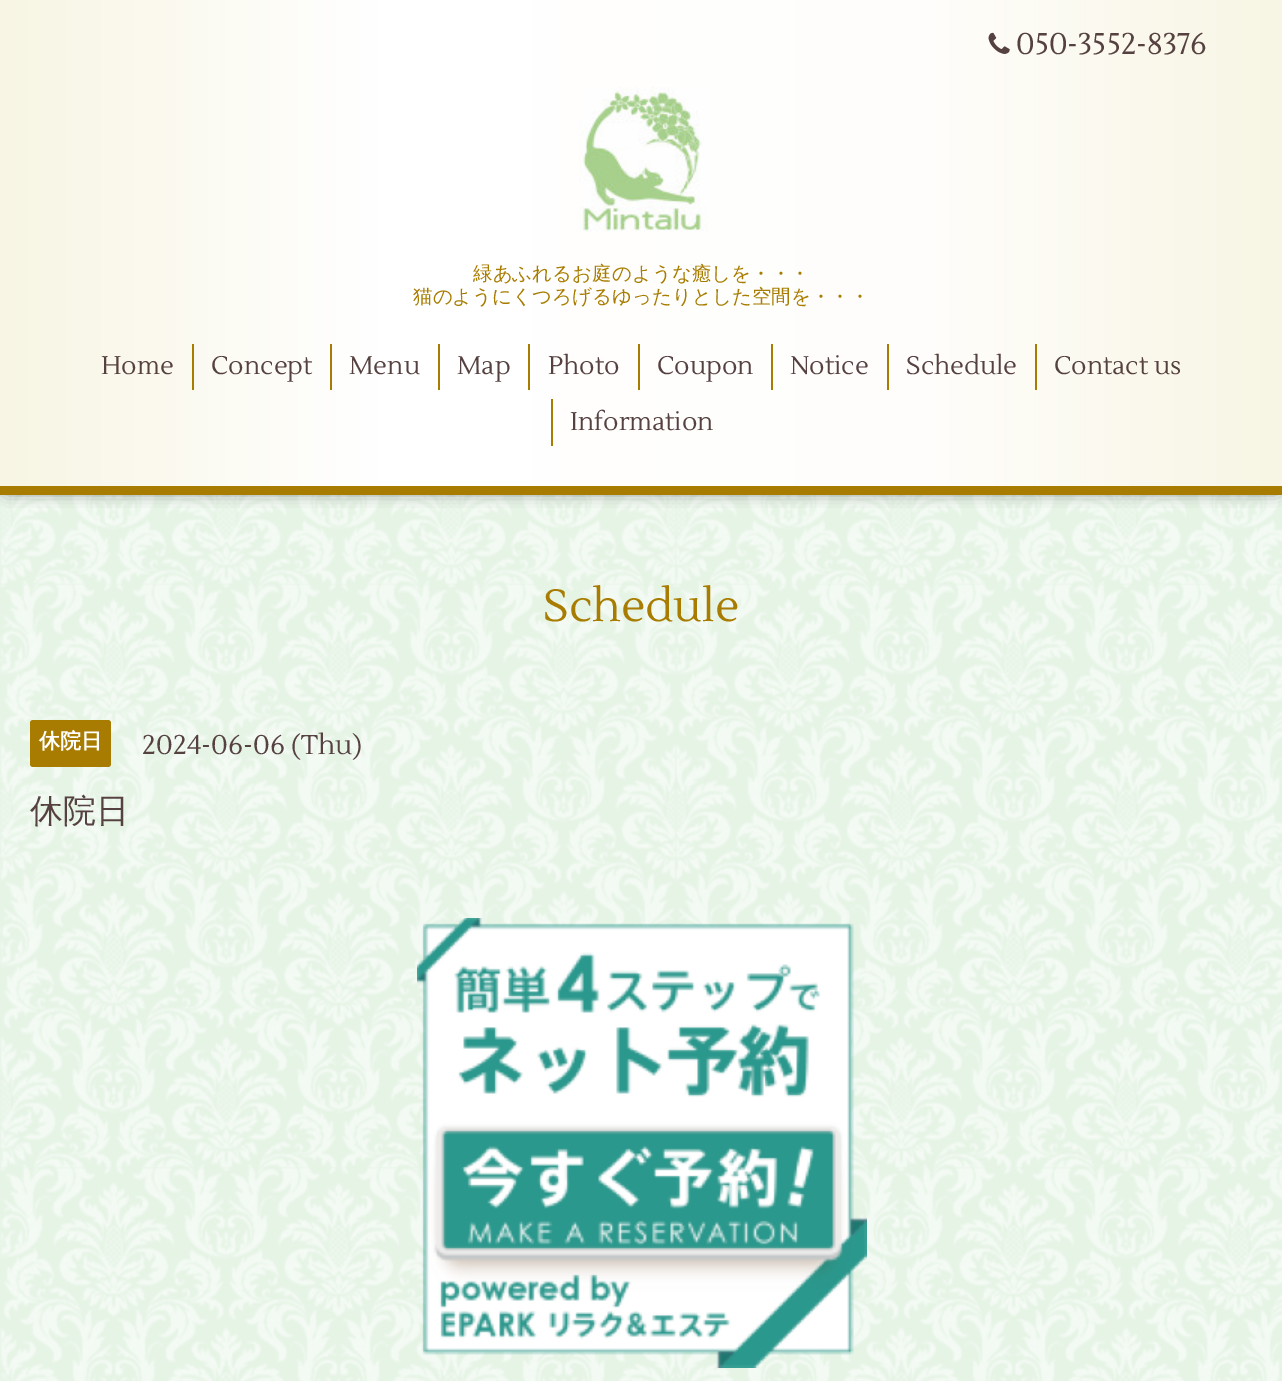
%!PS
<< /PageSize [1282 1381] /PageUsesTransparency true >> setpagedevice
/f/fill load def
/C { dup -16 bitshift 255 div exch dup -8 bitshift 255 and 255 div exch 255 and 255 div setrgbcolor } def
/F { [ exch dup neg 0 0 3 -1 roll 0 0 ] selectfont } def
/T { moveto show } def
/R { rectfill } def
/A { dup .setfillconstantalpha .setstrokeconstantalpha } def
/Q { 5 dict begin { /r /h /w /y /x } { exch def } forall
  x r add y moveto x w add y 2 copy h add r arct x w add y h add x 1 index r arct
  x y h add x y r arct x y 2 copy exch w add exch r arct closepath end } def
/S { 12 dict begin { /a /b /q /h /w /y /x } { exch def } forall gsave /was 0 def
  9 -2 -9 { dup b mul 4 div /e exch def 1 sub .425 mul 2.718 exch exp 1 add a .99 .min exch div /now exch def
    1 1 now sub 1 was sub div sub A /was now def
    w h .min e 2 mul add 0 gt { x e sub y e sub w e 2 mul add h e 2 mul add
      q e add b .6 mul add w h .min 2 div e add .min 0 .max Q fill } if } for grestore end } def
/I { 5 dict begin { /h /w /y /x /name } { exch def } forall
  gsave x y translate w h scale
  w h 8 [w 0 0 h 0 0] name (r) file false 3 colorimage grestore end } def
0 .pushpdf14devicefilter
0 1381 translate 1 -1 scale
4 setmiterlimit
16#E6F4E6 C
0 0 1282 1381 R
(1.rgb) 0 495 1282 886 I
16#000000 C
6 8 1271 483 0 7.5 .6 S
(2.rgb) 0 0 1282 486 I
16#A87C00 C
0 486 1282 9 R
(3.rgb) 988 32 22 22 I
/Lustria-Regular 30 F
16#564141 C
(050-3552-8376) 1016 54 T
(4.rgb) 579 87 129 145 I
/WenQuanYiZenHei-Medium 19.5 F
16#A87C00 C
(緑あふれるお庭のような癒しを・・・) 473 280 T
(猫のようにくつろげるゆったりとした空間を・・・) 413 303 T
/Lustria-Regular 25.5 F
16#564141 C
(Home) 101 374 T
16#A87C00 C
192 344 2 46 R
16#564141 C
(Concept) 211 374 T
16#A87C00 C
330 344 2 46 R
16#564141 C
(Menu) 349 374 T
16#A87C00 C
438 344 2 46 R
16#564141 C
(Map) 457 374 T
16#A87C00 C
528 344 2 46 R
16#564141 C
(Photo) 548 374 T
16#A87C00 C
638 344 2 46 R
16#564141 C
(Coupon) 657 374 T
16#A87C00 C
771 344 2 46 R
16#564141 C
(Notice) 790 374 T
16#A87C00 C
887 344 2 46 R
16#564141 C
(Schedule) 906 374 T
16#A87C00 C
1035 344 2 46 R
16#564141 C
(Contact us) 1054 374 T
16#A87C00 C
551 399 2 47 R
16#564141 C
(Information) 570 430 T
/Lustria-Regular 45 F
16#A87C00 C
(Schedule) 543 621 T
30 720 81 47 3 Q f
/WenQuanYiZenHei-Bold 21 F
16#FFFFFF C
(休院日) 39 748 T
/Lustria-Regular 27 F
16#564141 C
(2024-06-06 \(Thu\)) 142 754 T
/WenQuanYiZenHei-Medium 33 F
(休院日) 30 822 T
(5.rgb) 417 918 450 450 I
.poppdf14devicefilter showpage
